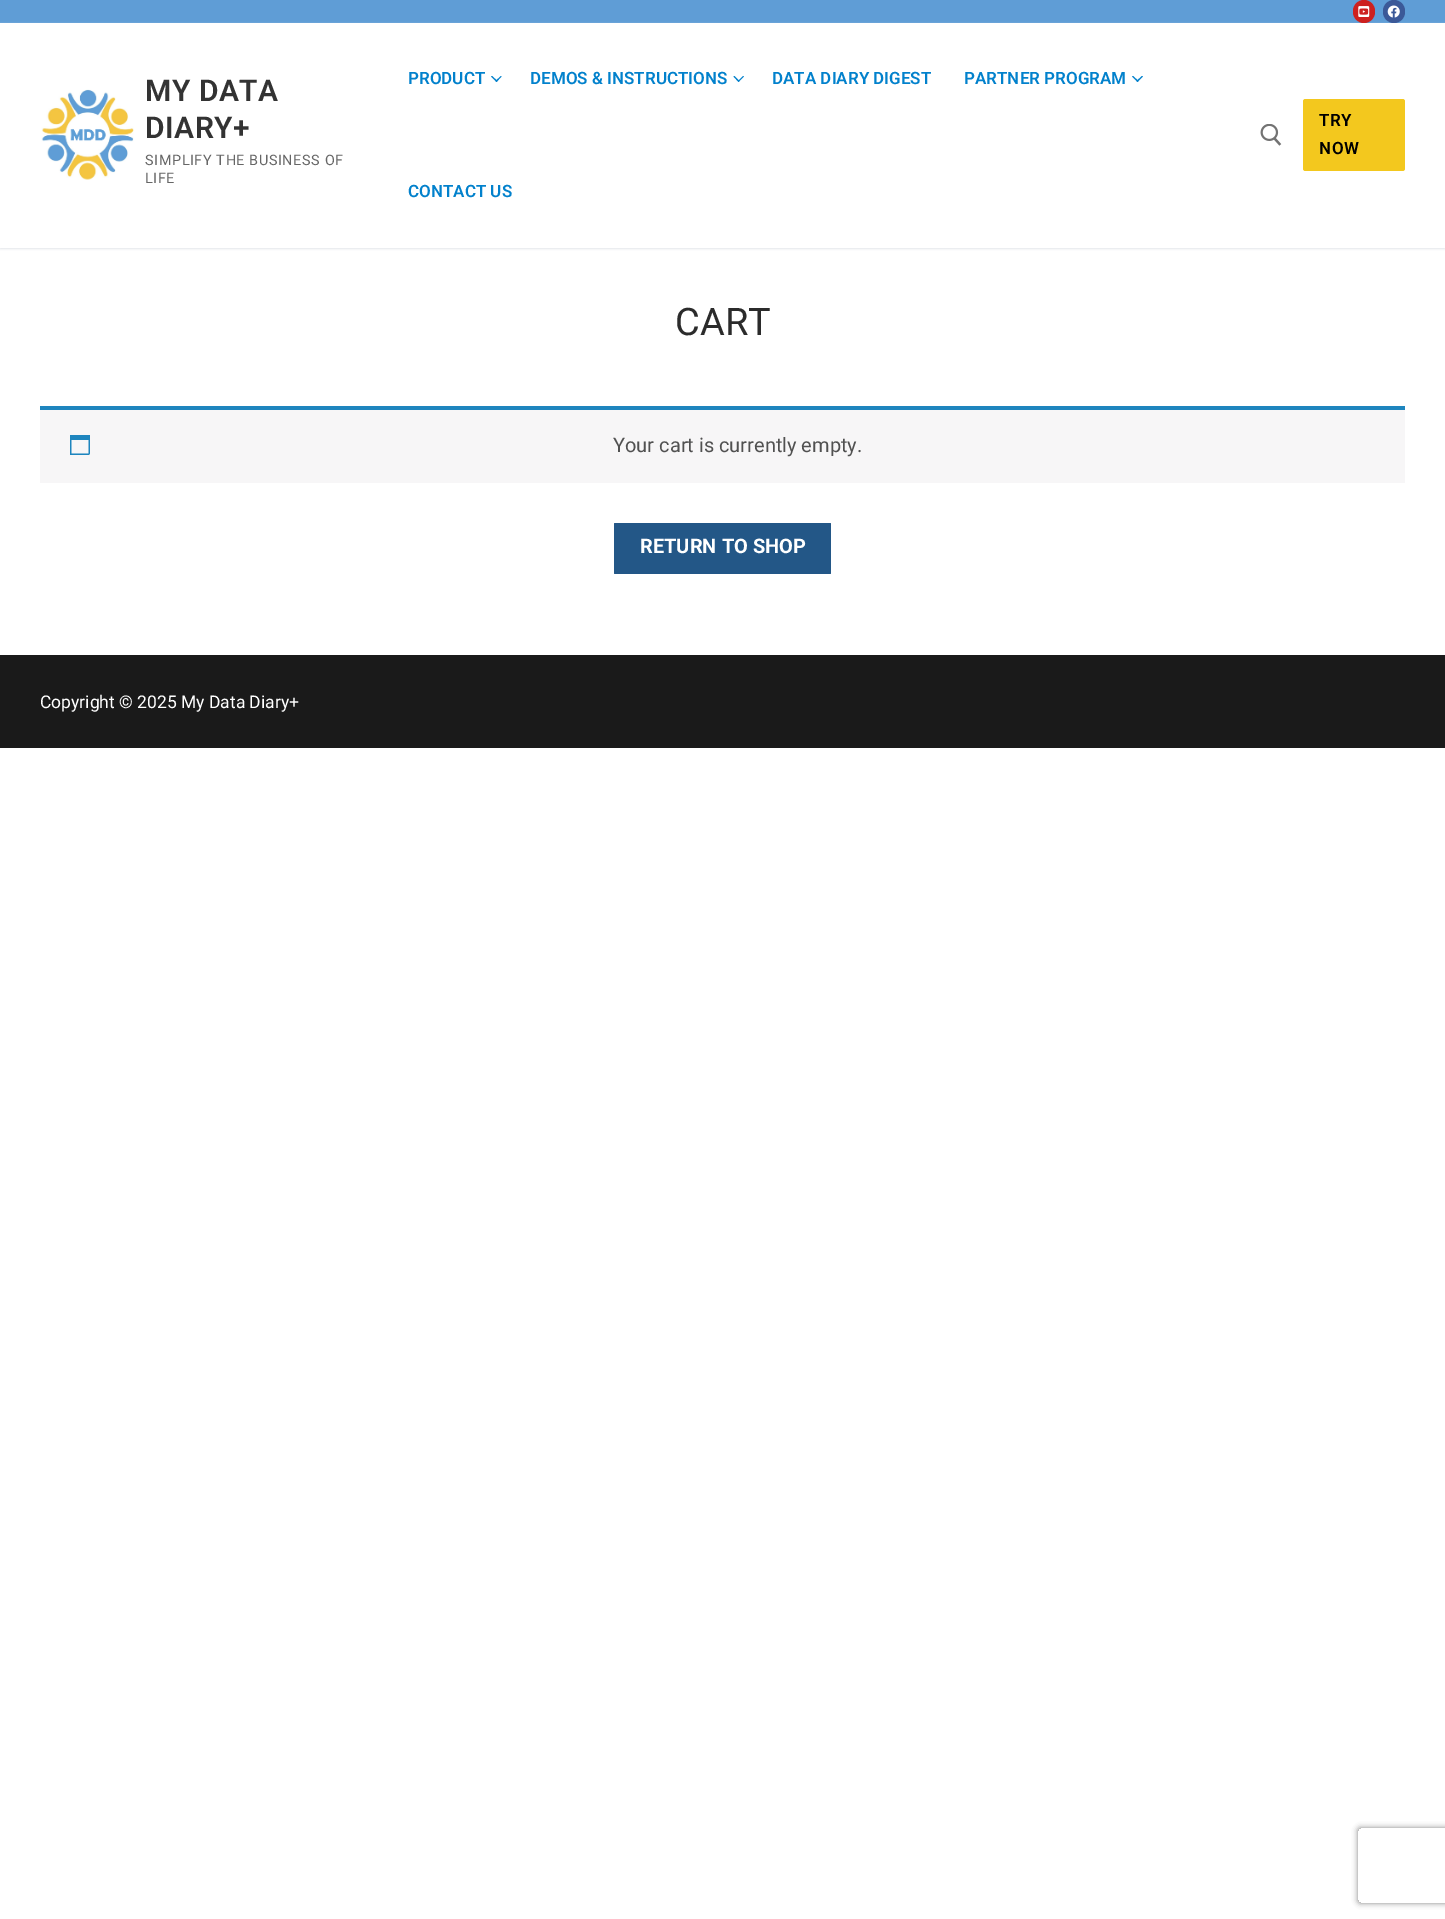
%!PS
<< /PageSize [1445 1919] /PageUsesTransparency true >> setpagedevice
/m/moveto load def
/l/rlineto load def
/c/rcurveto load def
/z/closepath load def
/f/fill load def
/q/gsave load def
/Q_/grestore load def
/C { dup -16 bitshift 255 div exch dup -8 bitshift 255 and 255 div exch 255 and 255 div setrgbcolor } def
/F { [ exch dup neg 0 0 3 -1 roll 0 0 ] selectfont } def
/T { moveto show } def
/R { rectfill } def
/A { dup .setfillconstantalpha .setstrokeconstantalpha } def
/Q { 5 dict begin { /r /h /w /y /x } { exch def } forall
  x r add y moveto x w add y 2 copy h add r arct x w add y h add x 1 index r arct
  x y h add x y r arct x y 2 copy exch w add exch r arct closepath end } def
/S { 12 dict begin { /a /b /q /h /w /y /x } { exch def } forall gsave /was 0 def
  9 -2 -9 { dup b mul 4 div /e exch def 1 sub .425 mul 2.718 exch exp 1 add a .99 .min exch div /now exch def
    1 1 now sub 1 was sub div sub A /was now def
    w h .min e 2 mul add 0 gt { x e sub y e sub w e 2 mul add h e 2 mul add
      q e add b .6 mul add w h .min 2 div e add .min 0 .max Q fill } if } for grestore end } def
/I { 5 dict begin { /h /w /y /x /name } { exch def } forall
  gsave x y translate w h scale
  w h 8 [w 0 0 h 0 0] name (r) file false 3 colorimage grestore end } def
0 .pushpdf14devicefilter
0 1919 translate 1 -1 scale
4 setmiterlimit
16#FFFFFF C
0 0 1445 1919 R
16#5F9DD6 C
0 0 1445 23 R
16#E1E5EA C
0 24 1445 225 0 1 1 S
16#CD201F C
1353 0 22 23 11 Q f
(1.rgb) 1358 6 12 11 I
16#3B5998 C
1383 0 22 23 11 Q f
(2.rgb) 1387 5 13 13 I
16#FFFFFF C
0 23 1445 225 R
(3.rgb) 41 89 93 91 I
/Roboto-SemiBold 30 F
16#333333 C
145 101 m .5 0 (MY DATA) ashow
145 138 m .5 0 (DIARY+) ashow
/Roboto-Regular 14.4 F
16#666666 C
145 165 m .6 0 (SIMPLIFY THE BUSINESS OF) ashow
145 183 m .6 0 (LIFE) ashow
/Roboto-SemiBold 17 F
16#0281CC C
(PRODUCT) 408 84 T
496.5 82 m -5.5 -5.5 l 1 -.5 l 5.5 5 l z f
496.5 82 m -1 -1 l 5.5 -5 l .5 .5 l z f
(DEMOS & INSTRUCTIONS) 530 84 T
738.5 82 m -5 -5.5 l 1 -.5 l 5 5 l z f
738.5 82 m -.5 -1 l 5 -5 l 1 .5 l z f
(DATA DIARY DIGEST) 772 84 T
(PARTNER PROGRAM) 964 84 T
1137.5 82 m -5.5 -5.5 l 1 -.5 l 5.5 5 l z f
1137.5 82 m -1 -1 l 5.5 -5 l 1 .5 l z f
(CONTACT US) 408 197 T
(4.rgb) 1260 124 22 22 I
16#F3C81E C
1303 99 102 72 2.5 Q f
16#000000 C
1319 126 m .6 0 (TRY) ashow
1319 154 m .6 0 (NOW) ashow
/Roboto-Regular 38 F
16#2B2B2B C
(CART) 675 335 T
16#F7F6F7 C
40 410 1365 73 R
16#1E85BE C
40 406 1365 4 R
(5.rgb) 70 435 20 20 I
/Roboto-Regular 20 F
16#515151 C
(Your cart is currently empty.) 613 452 T
16#235787 C
614 523 217 51 1 Q f
/Roboto-Bold 20 F
16#FFFFFF C
(RETURN TO SHOP) 640 553 T
16#1A1A1A C
0 655 1445 93 R
/Roboto-Regular 17.5 F
16#FFFFFF C
(Copyright © 2025 My Data Diary+) 40 708 T
q
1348 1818 m 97 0 l 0 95 l -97 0 l z 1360.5 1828 m 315 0 l 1.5 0 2.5 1 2.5 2.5 c 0 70 l 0 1.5 -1 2.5 -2.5 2.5 c -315 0 l -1.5 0 -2.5 -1 -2.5 -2.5 c 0 -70 l 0 -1.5 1 -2.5 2.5 -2.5 c z eoclip newpath
16#808080 C
1358 1828 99 75 2.5 3 1 S
Q_
.poppdf14devicefilter showpage
